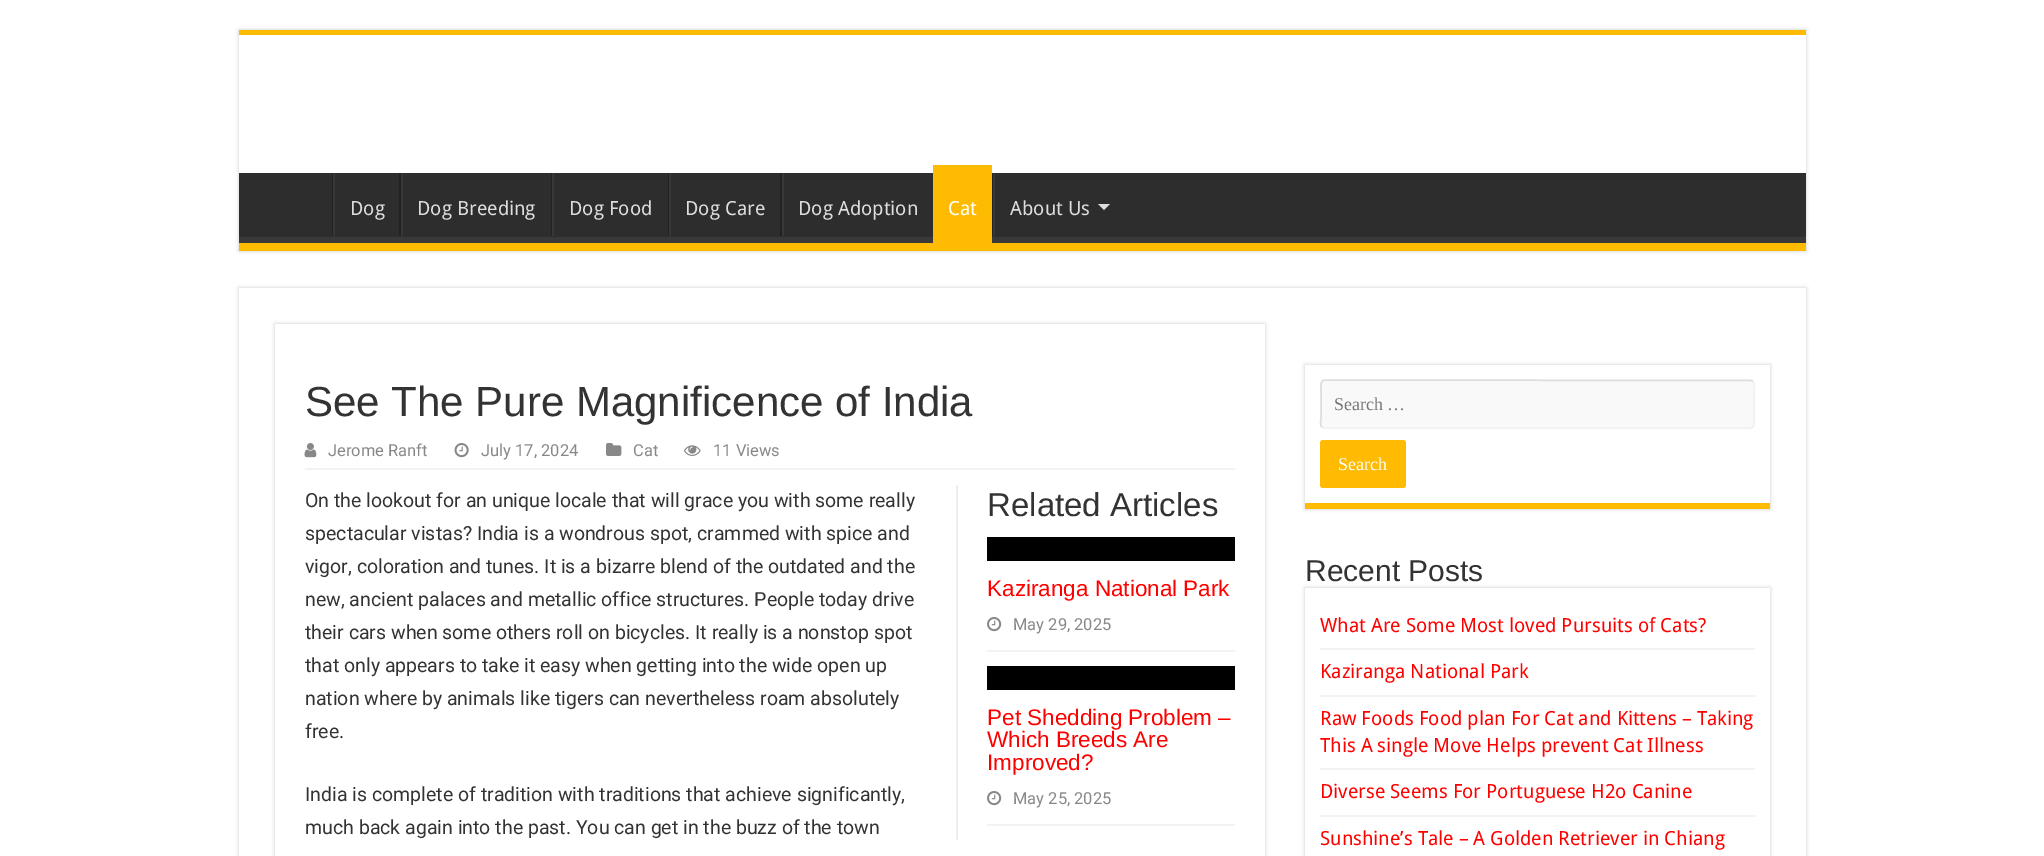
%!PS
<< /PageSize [2044 856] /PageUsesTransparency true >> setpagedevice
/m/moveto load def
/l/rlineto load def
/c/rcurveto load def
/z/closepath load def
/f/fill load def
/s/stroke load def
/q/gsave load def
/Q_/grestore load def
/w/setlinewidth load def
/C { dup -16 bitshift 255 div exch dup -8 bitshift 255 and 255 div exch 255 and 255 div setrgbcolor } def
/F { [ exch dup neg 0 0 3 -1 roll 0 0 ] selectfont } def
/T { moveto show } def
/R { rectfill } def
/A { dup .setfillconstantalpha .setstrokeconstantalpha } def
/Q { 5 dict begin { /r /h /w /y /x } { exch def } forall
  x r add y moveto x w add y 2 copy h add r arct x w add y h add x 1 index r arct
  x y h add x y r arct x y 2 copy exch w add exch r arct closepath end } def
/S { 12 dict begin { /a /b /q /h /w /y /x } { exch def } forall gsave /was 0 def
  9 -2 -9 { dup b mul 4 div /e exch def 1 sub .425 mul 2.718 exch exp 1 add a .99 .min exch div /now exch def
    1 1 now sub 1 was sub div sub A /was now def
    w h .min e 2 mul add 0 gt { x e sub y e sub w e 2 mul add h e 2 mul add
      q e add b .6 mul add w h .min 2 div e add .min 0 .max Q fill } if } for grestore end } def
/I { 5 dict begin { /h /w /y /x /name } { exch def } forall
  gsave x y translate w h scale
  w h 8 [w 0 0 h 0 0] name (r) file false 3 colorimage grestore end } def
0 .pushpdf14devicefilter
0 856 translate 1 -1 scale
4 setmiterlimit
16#FFFFFF C
0 0 2044 856 R
16#CACACA C
239 30 1567 221 0 2 1 S
16#FFFFFF C
239 35 1567 138 R
16#FFBB01 C
239 30 1567 5 R
16#2D2D2D C
239 173 1567 64 R
q
239 173 1567 70 rectclip
16#393939 C
90 24 m 1864 0 l 0 368 l -1864 0 l z 237 164 m 1567 0 l 1 0 2 0 2 1 c 0 71 l 0 0 -1 1 -2 1 c -1567 0 l -1 0 -1 -1 -1 -1 c 0 -71 l 0 -1 0 -1 1 -1 c z eofill
Q_
16#FFBB01 C
239 243 1567 8 R
16#222222 C
332 173 1 63 R
16#383838 C
333 173 2 63 R
/DroidSans-Regular 19.5 F
16#DDDDDD C
(Dog) 350 215 T
16#222222 C
399 173 2 63 R
16#383838 C
401 173 2 63 R
16#DDDDDD C
(Dog Breeding) 417 215 T
16#222222 C
551 173 1 63 R
16#383838 C
552 173 2 63 R
16#DDDDDD C
(Dog Food) 569 215 T
16#222222 C
668 173 1 63 R
16#383838 C
669 173 2 63 R
16#DDDDDD C
(Dog Care) 685 215 T
16#222222 C
780 173 2 63 R
16#383838 C
782 173 2 63 R
16#DDDDDD C
(Dog Adoption) 798 215 T
16#FFBB01 C
933 165 59 78 R
16#FFFFFF C
(Cat) 948 215 T
16#222222 C
992 173 1 63 R
16#383838 C
993 173 2 63 R
16#DDDDDD C
(About Us) 1010 215 T
1098 204 m 12 0 l -6 6 l z f
q
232 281 m 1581 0 l 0 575 l -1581 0 l z 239 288 m 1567 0 l 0 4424 l -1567 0 l z eoclip newpath
16#CACACA C
239 288 1567 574 0 2 1 S
Q_
16#CACACA C
275 324 990 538 0 2 1 S
16#FFFFFF C
275 324 990 532 R
/LiberationSans-Regular 42 F
16#333333 C
(See The Pure Magnificence of India) 305 416 T
16#F2F2F2 C
305 468 930 2 R
(1.rgb) 304 443 13 15 I
/Roboto-Regular 16.5 F
16#888888 C
(Jerome Ranft) 328 456 T
(2.rgb) 454 443 15 15 I
(July 17, 2024) 481 456 T
(3.rgb) 606 443 16 13 I
(Cat) 633 456 T
(4.rgb) 684 445 17 11 I
(11 Views) 713 456 T
/Roboto-Regular 19.5 F
16#333333 C
(On the lookout for an unique locale that will grace you with some really) 305 507 T
(spectacular vistas? India is a wondrous spot, crammed with spice and) 305 540 T
(vigor, coloration and tunes. It is a bizarre blend of the outdated and the) 305 573 T
(new, ancient palaces and metallic office structures. People today drive) 305 606 T
(their cars when some others roll on bicycles. It really is a nonstop spot) 305 639 T
(that only appears to take it easy when getting into the wide open up) 305 672 T
(nation where by animals like tigers can nevertheless roam absolutely) 305 705 T
(free.) 305 738 T
16#EEEEEE C
956 485 2 355 R
/LiberationSans-Regular 33 F
16#333333 C
(Related Articles) 987 516 T
16#000000 C
987 537 248 24 R
/LiberationSans-Regular 22.5 F
16#FF0000 C
(Kaziranga National Park) 987 596 T
16#F2F2F2 C
987 650 248 2 R
(5.rgb) 987 617 15 15 I
/Roboto-Regular 16.5 F
16#888888 C
(May 29, 2025) 1013 630 T
16#000000 C
987 666 248 24 R
/LiberationSans-Regular 22.5 F
16#FF0000 C
(Pet Shedding Problem –) 987 725 T
(Which Breeds Are) 987 747 T
(Improved?) 987 770 T
16#F2F2F2 C
987 824 248 2 R
(5.rgb) 987 791 15 15 I
/Roboto-Regular 16.5 F
16#888888 C
(May 25, 2025) 1013 804 T
/Roboto-Regular 19.5 F
16#333333 C
(India is complete of tradition with traditions that achieve significantly,) 305 801 T
(much back again into the past. You can get in the buzz of the town) 305 834 T
16#CACACA C
1305 365 465 144 0 2 1 S
16#FFFFFF C
1305 365 465 138 R
16#FFBB01 C
1305 503 465 6 R
16#F9F9F9 C
1320 380 435 49 5 Q f
16#F1F1F1 C
1.5 w
1753 381.5 m 2.5 2 1 7.5 1 9.5 c 0 27 l 0 2.5 1.5 10 -3.5 10 c -426.5 0 l -2 -1 l s
16#DDDDDD C
1322 427 m -2.5 -2 -1 -7.5 -1 -9 c 0 -27 l 0 -3 -1.5 -10.5 3.5 -11 c 426.5 .5 l 2 1 l s
/LiberationSerif-Regular 18 F
16#757575 C
(Search …) 1334 410 T
16#FFBB01 C
1320 440 86 48 3 Q f
16#FFFFFF C
(Search) 1338 470 T
q
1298 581 m 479 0 l 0 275 l -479 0 l z 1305 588 m 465 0 l 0 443 l -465 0 l z eoclip newpath
16#CACACA C
1305 588 465 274 0 2 1 S
Q_
/LiberationSans-Regular 30 F
16#333333 C
(Recent Posts) 1305 581 T
16#F2F2F2 C
1320 648 435 2 R
/DroidSans-Regular 19.5 F
16#FF0000 C
(What Are Some Most loved Pursuits of Cats?) 1320 632 T
16#F2F2F2 C
1320 695 435 2 R
16#FF0000 C
(Kaziranga National Park) 1320 678 T
16#F2F2F2 C
1320 768 435 2 R
16#FF0000 C
(Raw Foods Food plan For Cat and Kittens – Taking) 1320 725 T
(This A single Move Helps prevent Cat Illness) 1320 752 T
16#F2F2F2 C
1320 815 435 2 R
16#FF0000 C
(Diverse Seems For Portuguese H2o Canine) 1320 798 T
(Sunshine’s Tale – A Golden Retriever in Chiang) 1320 845 T
.poppdf14devicefilter showpage
